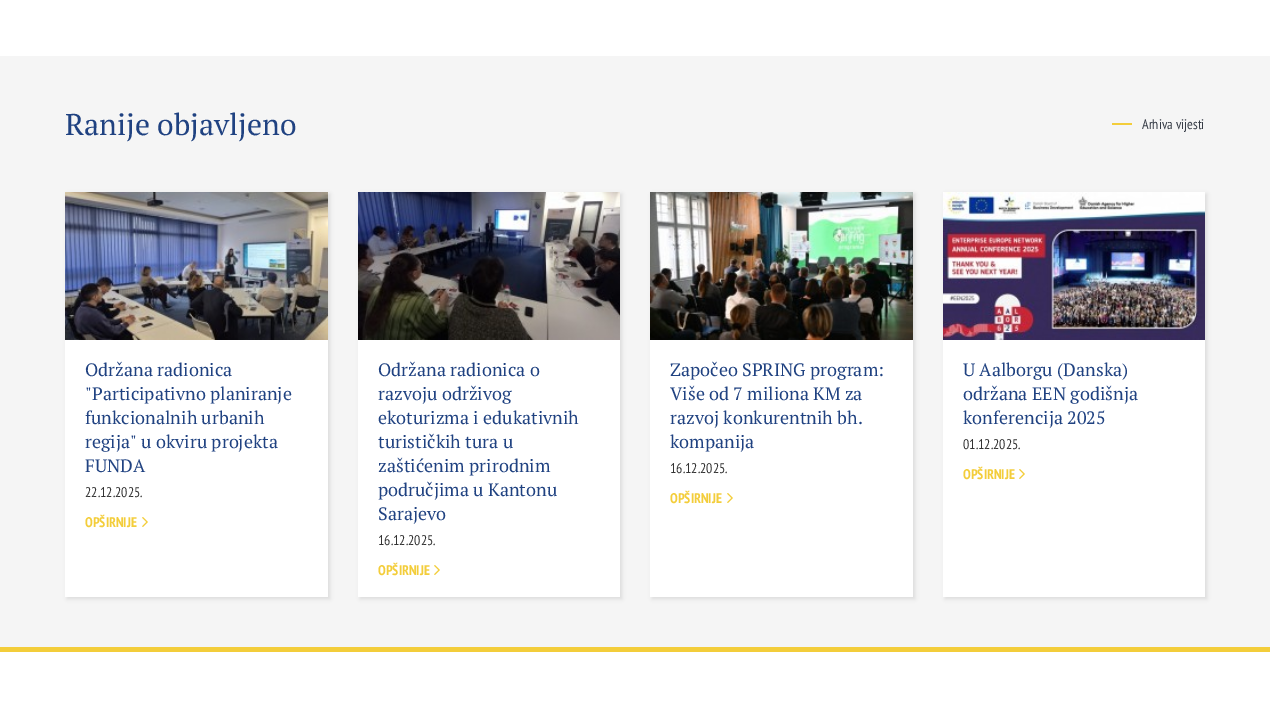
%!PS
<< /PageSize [1270 708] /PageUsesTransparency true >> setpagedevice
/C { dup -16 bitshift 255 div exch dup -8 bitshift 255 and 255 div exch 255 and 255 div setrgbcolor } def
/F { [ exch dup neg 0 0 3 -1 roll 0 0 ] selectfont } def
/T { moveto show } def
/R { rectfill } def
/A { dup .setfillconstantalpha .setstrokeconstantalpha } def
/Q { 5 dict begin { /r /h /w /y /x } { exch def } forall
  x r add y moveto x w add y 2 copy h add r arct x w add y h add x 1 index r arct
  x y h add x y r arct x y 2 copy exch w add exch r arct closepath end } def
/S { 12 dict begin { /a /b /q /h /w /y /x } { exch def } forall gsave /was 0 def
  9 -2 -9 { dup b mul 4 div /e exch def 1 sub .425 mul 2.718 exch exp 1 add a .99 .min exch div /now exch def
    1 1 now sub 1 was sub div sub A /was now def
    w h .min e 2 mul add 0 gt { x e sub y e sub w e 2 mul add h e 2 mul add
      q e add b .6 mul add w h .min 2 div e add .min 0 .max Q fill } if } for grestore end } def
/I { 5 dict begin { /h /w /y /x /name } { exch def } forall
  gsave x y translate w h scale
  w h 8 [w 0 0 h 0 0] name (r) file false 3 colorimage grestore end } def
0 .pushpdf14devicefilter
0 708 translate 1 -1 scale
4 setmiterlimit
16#F5F5F5 C
0 0 1270 708 R
16#FFFFFF C
0 0 1270 56 R
/PTSerif-Regular 30 F
16#204281 C
(Ranije objavljeno) 65 135 T
16#F3CD3A C
1112 123 20 2 R
/PTSansNarrow-Regular 14 F
16#373D47 C
(Arhiva vijesti) 1142 129 T
16#000000 C
67 194 263 405 0 2 .1 S
(1.rgb) 65 192 263 148 I
16#FFFFFF C
65 340 263 257 R
/PTSerif-Regular 18 F
16#204281 C
(Održana radionica) 85 376 T
("Participativno planiranje) 85 400 T
(funkcionalnih urbanih) 85 424 T
(regija" u okviru projekta) 85 448 T
(FUNDA) 85 472 T
/PTSansNarrow-Regular 14 F
16#333333 C
(22.12.2025.) 85 497 T
/PTSansNarrow-Bold 14 F
16#F3CD3A C
(OPŠIRNIJE) 85 527 T
(2.rgb) 142 517 6 10 I
16#000000 C
360 194 262 405 0 2 .1 S
(3.rgb) 358 192 262 148 I
16#FFFFFF C
358 340 262 257 R
/PTSerif-Regular 18 F
16#204281 C
(Održana radionica o) 378 376 T
(razvoju održivog) 378 400 T
(ekoturizma i edukativnih) 378 424 T
(turističkih tura u) 378 448 T
(zaštićenim prirodnim) 378 472 T
(područjima u Kantonu) 378 496 T
(Sarajevo) 378 520 T
/PTSansNarrow-Regular 14 F
16#333333 C
(16.12.2025.) 378 545 T
/PTSansNarrow-Bold 14 F
16#F3CD3A C
(OPŠIRNIJE) 378 575 T
(2.rgb) 434 565 6 10 I
16#000000 C
652 194 263 405 0 2 .1 S
(4.rgb) 650 192 263 148 I
16#FFFFFF C
650 340 263 257 R
/PTSerif-Regular 18 F
16#204281 C
(Započeo SPRING program:) 670 376 T
(Više od 7 miliona KM za) 670 400 T
(razvoj konkurentnih bh.) 670 424 T
(kompanija) 670 448 T
/PTSansNarrow-Regular 14 F
16#333333 C
(16.12.2025.) 670 473 T
/PTSansNarrow-Bold 14 F
16#F3CD3A C
(OPŠIRNIJE) 670 503 T
(2.rgb) 727 493 6 10 I
16#000000 C
945 194 262 405 0 2 .1 S
(5.rgb) 943 192 262 148 I
16#FFFFFF C
943 340 262 257 R
/PTSerif-Regular 18 F
16#204281 C
(U Aalborgu \(Danska\)) 963 376 T
(održana EEN godišnja) 963 400 T
(konferencija 2025) 963 424 T
/PTSansNarrow-Regular 14 F
16#333333 C
(01.12.2025.) 963 449 T
/PTSansNarrow-Bold 14 F
16#F3CD3A C
(OPŠIRNIJE) 963 479 T
(2.rgb) 1019 469 6 10 I
16#FFFFFF C
0 652 1270 56 R
16#F3CD3A C
0 647 1270 5 R
.poppdf14devicefilter showpage
